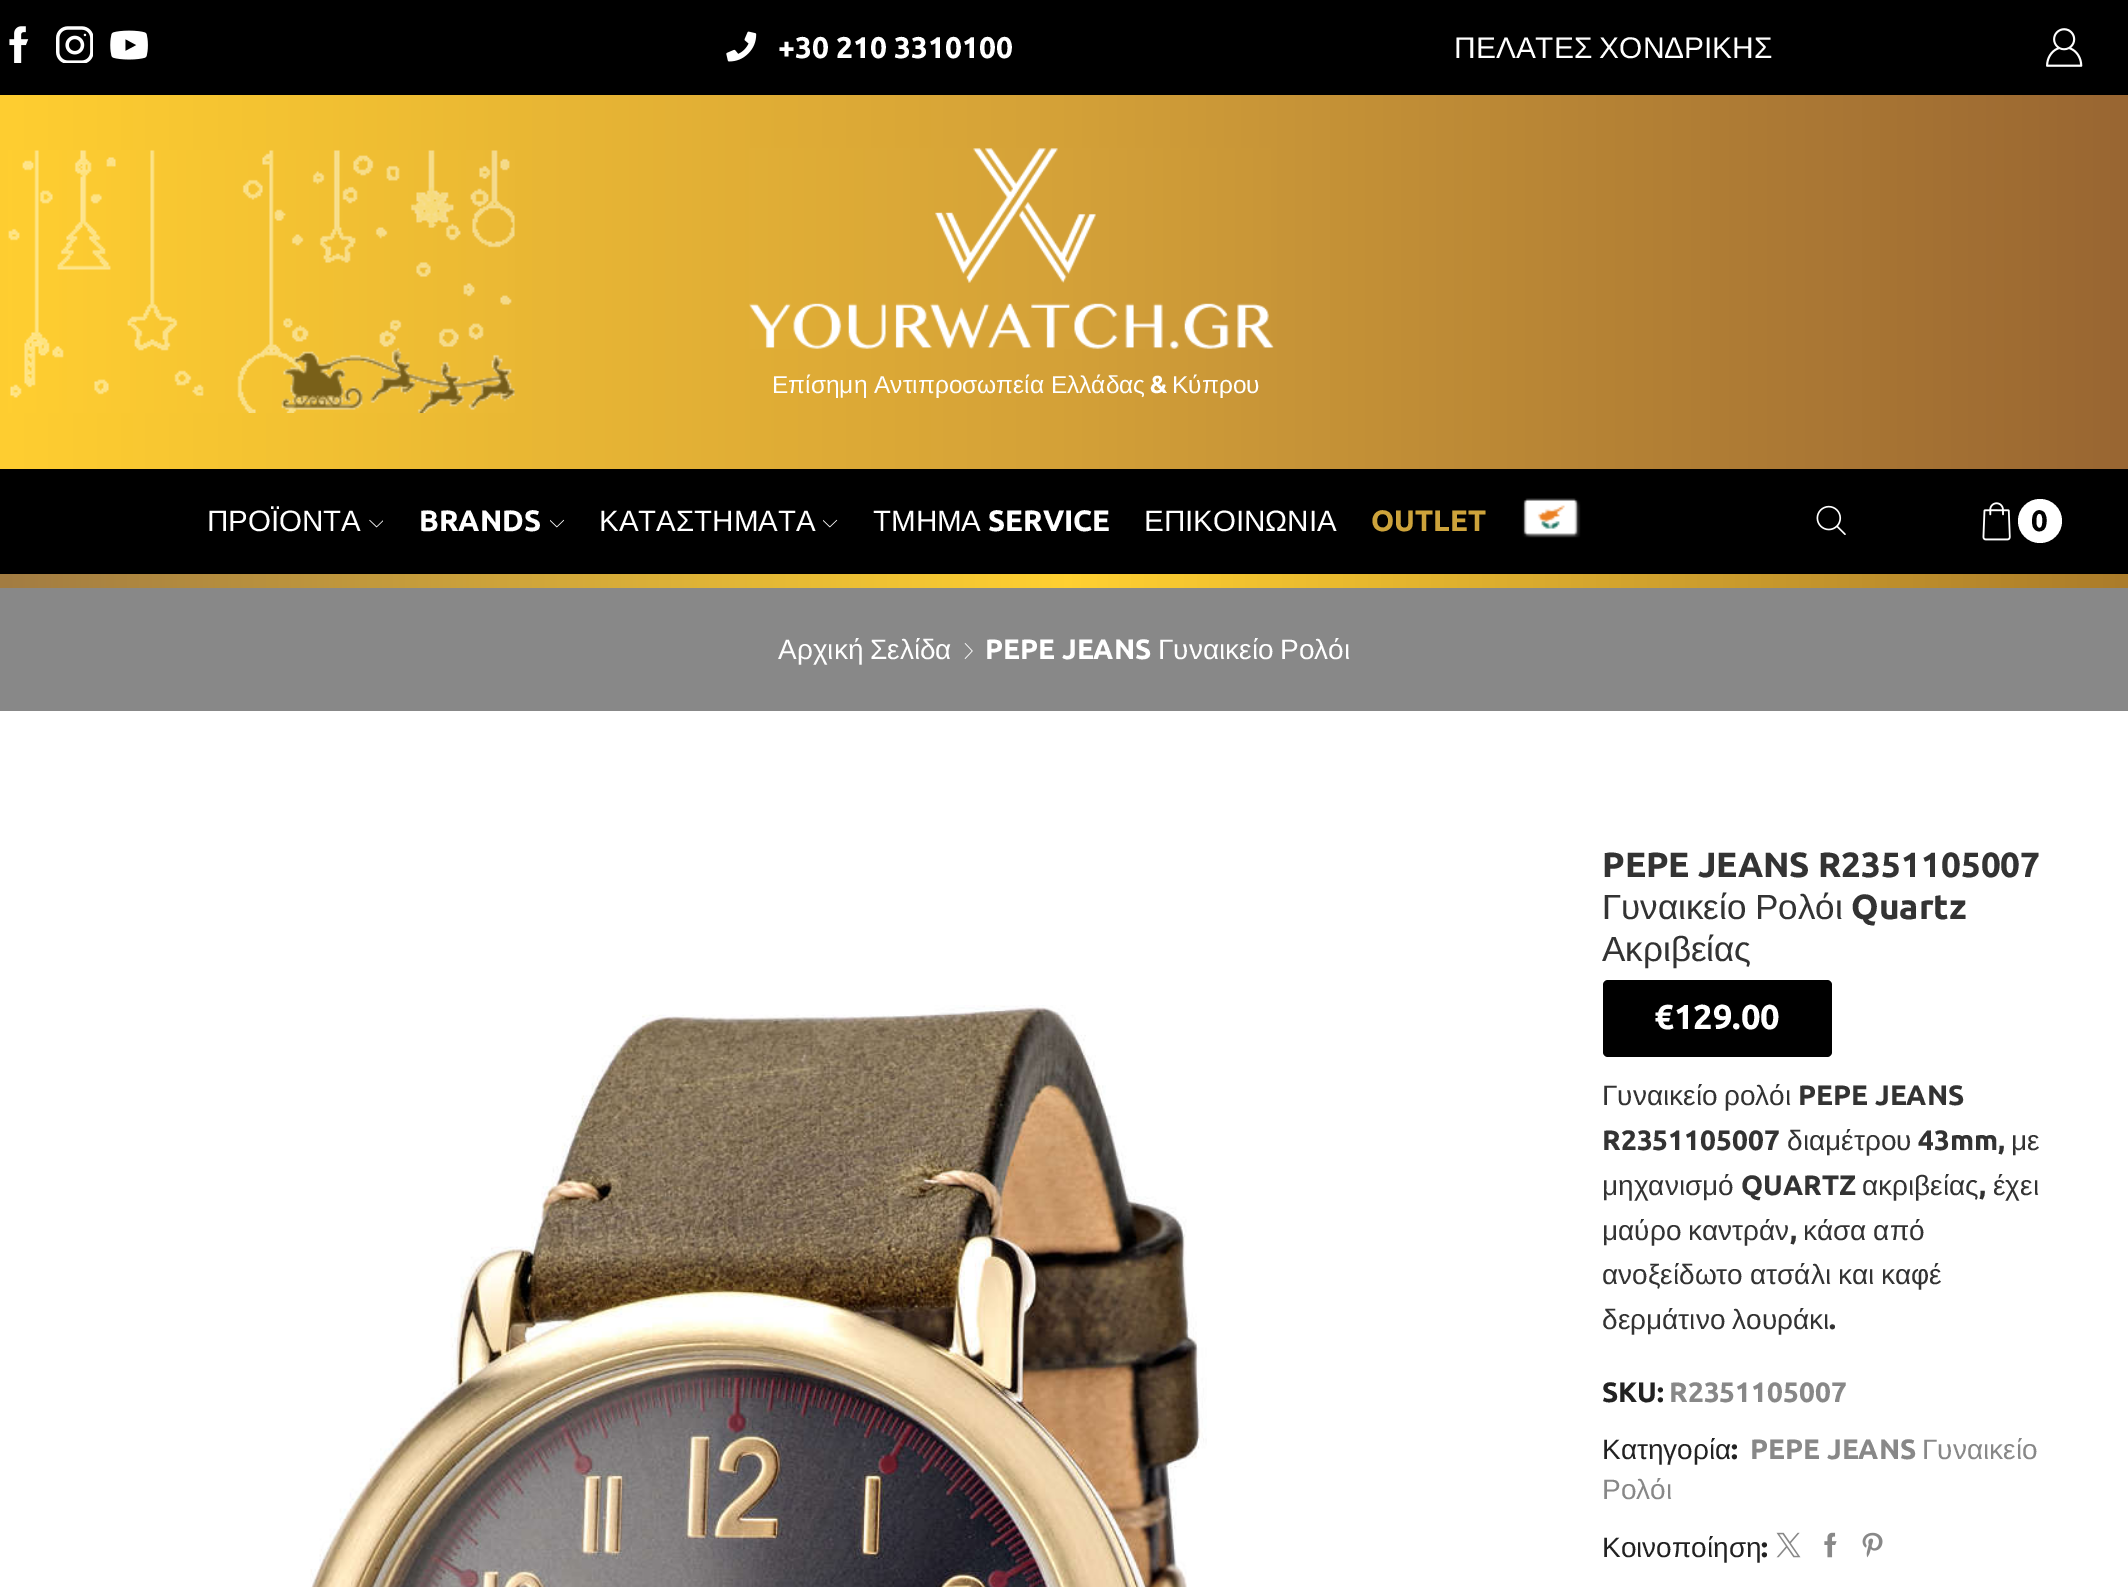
%!PS
<< /PageSize [2128 1587] >> setpagedevice
/m/moveto load def
/l/rlineto load def
/z/closepath load def
/f/fill load def
/q/gsave load def
/Q_/grestore load def
/C { dup -16 bitshift 255 div exch dup -8 bitshift 255 and 255 div exch 255 and 255 div setrgbcolor } def
/F { [ exch dup neg 0 0 3 -1 roll 0 0 ] selectfont } def
/T { moveto show } def
/R { rectfill } def
/O { newpath 0 360 arc closepath } def
/Q { 5 dict begin { /r /h /w /y /x } { exch def } forall
  x r add y moveto x w add y 2 copy h add r arct x w add y h add x 1 index r arct
  x y h add x y r arct x y 2 copy exch w add exch r arct closepath end } def
/I { 5 dict begin { /h /w /y /x /name } { exch def } forall
  gsave x y translate w h scale
  w h 8 [w 0 0 h 0 0] name (r) file false 3 colorimage grestore end } def
0 1587 translate 1 -1 scale
4 setmiterlimit
16#FFFFFF C
0 0 2128 1587 R
q 0 95 m 2128 0 l 0 374 l -2128 0 l z clip newpath
<< /ShadingType 2 /ColorSpace /DeviceRGB /Coords [0 294 2128 294] /Extend [true true] /Function << /FunctionType 3 /Domain [0 1] /Functions [<< /FunctionType 2 /Domain [0 1] /C0 [1 .808 .188] /C1 [.831 .631 .22] /N 1 >> << /FunctionType 2 /Domain [0 1] /C0 [.831 .631 .22] /C1 [.6 .4 .196] /N 1 >>] /Bounds [.5] /Encode [0 1 0 1] >> >> shfill Q_
16#000000 C
0 0 2128 95 R
(1.rgb) 9 26 20 37 I
(2.rgb) 56 26 37 37 I
(3.rgb) 110 30 38 30 I
(4.rgb) 726 31 31 31 I
/Ubuntu-Bold 29.9 F
16#FFFFFF C
(+30 210 3310100) 778 58 T
/LiberationSans-Regular 29.9 F
1454 58 m -1 0 32 (ΠΕΛΑΤΕΣ ΧΟΝΔΡΙΚΗΣ) widthshow
(5.rgb) 2046 28 37 39 I
(6.rgb) 8 150 507 263 I
(7.rgb) 749 148 525 201 I
/LiberationSans-Regular 24.5 F
(Επίσημη Αντιπροσωπεία Ελλάδας) 772 393 T
/Ubuntu-Bold 24.5 F
(&) 1150 393 T
/LiberationSans-Regular 24.5 F
(Κύπρου) 1172 393 T
16#000000 C
0 469 2128 105 R
/LiberationSans-Regular 29.5 F
16#FFFFFF C
(ΠΡΟΪΟΝΤΑ) 207 531 T
(8.rgb) 369 519 14 9 I
/Ubuntu-Bold 29.5 F
(BRANDS) 419 531 T
(9.rgb) 550 519 14 9 I
/LiberationSans-Regular 29.5 F
(ΚΑΤΑΣΤΗΜΑΤΑ) 599 531 T
(10.rgb) 823 519 15 9 I
(ΤΜΗΜΑ) 873 531 T
/Ubuntu-Bold 29.5 F
(SERVICE) 988 531 T
/LiberationSans-Regular 29.5 F
(ΕΠΙΚΟΙΝΩΝΙΑ) 1144 531 T
/Ubuntu-Bold 29.5 F
16#CDA33B C
(OUTLET) 1371 531 T
(11.rgb) 1522 498 59 40 I
(12.rgb) 1816 505 30 30 I
(13.rgb) 1982 502 29 39 I
16#FFFFFF C
2040 521 22 O f
16#000000 C
(0) 2031 531 T
q 0 574 m 2128 0 l 0 14 l -2128 0 l z clip newpath
<< /ShadingType 2 /ColorSpace /DeviceRGB /Coords [-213 581 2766 581] /Extend [true true] /Function << /FunctionType 3 /Domain [0 1] /Functions [<< /FunctionType 2 /Domain [0 1] /C0 [.561 .42 .275] /C1 [1 .816 .192] /N 1 >> << /FunctionType 2 /Domain [0 1] /C0 [1 .816 .192] /C1 [.475 .29 .149] /N 1 >>] /Bounds [.43] /Encode [0 1 0 1] >> >> shfill Q_
16#888888 C
0 588 2128 123 R
/LiberationSans-Regular 28 F
16#FFFFFF C
778 659 m -1 0 32 (Αρχική Σελίδα) widthshow
(14.rgb) 964 643 9 16 I
/Ubuntu-Bold 28 F
(PEPE JEANS) 985 659 T
/LiberationSans-Regular 28 F
(Γυναικείο) 1158 659 T
(Ρολόι) 1280 659 T
(15.rgb) 310 1005 897 582 I
/Ubuntu-Bold 35 F
16#333333 C
(PEPE JEANS R2351105007) 1602 877 T
/LiberationSans-Regular 35 F
1602 919 m -1 0 32 (Γυναικείο Ρολόι) widthshow
/Ubuntu-Bold 35 F
(Quartz) 1851 919 T
/LiberationSans-Regular 35 F
(Ακριβείας) 1602 961 T
16#000000 C
1603 980 229 77 5 Q f
/Ubuntu-Bold 34.5 F
16#FFFFFF C
(€129.00) 1654 1029 T
/LiberationSans-Regular 28 F
16#333333 C
(Γυναικείο) 1602 1105 T
(ρολόι) 1724 1105 T
/Ubuntu-Bold 28 F
(PEPE JEANS) 1798 1105 T
(R2351105007) 1602 1150 T
/LiberationSans-Regular 28 F
(διαμέτρου) 1787 1150 T
/Ubuntu-Bold 28 F
(43mm,) 1918 1150 T
/LiberationSans-Regular 28 F
(με) 2011 1150 T
(μηχανισμό) 1602 1195 T
/Ubuntu-Bold 28 F
(QUARTZ) 1741 1195 T
/LiberationSans-Regular 28 F
(ακριβείας) 1862 1195 T
/Ubuntu-Bold 28 F
(,) 1979 1195 T
/LiberationSans-Regular 28 F
(έχει) 1993 1195 T
1602 1240 m -1 0 32 (μαύρο καντράν) widthshow
/Ubuntu-Bold 28 F
(,) 1790 1240 T
/LiberationSans-Regular 28 F
1803 1240 m -1 0 32 (κάσα από) widthshow
1602 1284 m -1 0 32 (ανοξείδωτο ατσάλι και καφέ) widthshow
1602 1329 m -1 0 32 (δερμάτινο λουράκι) widthshow
/Ubuntu-Bold 28 F
(.) 1829 1329 T
16#222222 C
(SKU:) 1602 1402 T
16#888888 C
(R2351105007) 1669 1402 T
/LiberationSans-Regular 28 F
16#222222 C
(Κατηγορία) 1602 1459 T
/Ubuntu-Bold 28 F
(:) 1731 1459 T
16#888888 C
(PEPE JEANS) 1750 1459 T
/LiberationSans-Regular 28 F
(Γυναικείο) 1922 1459 T
(Ρολόι) 1602 1499 T
16#222222 C
(Κοινοποίηση) 1602 1557 T
/Ubuntu-Bold 28 F
(:) 1761 1557 T
(16.rgb) 1776 1532 25 26 I
(17.rgb) 1824 1532 13 26 I
(18.rgb) 1862 1532 21 26 I
showpage
